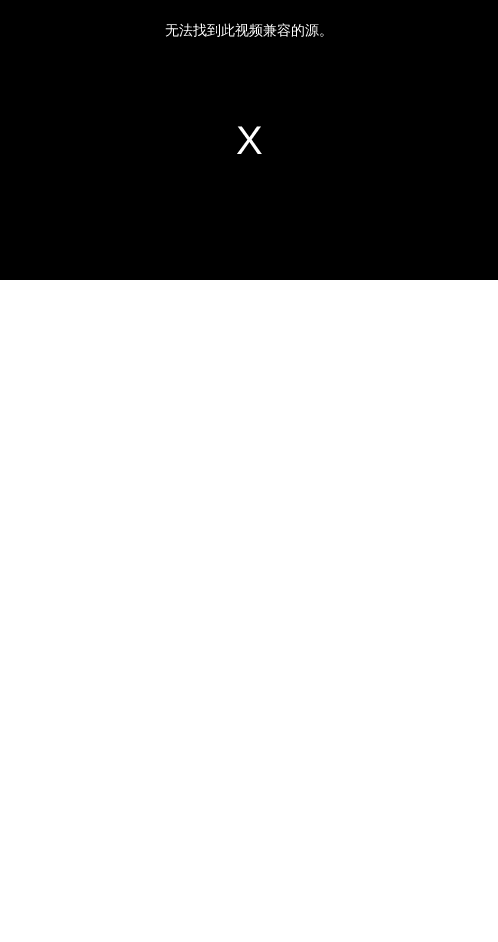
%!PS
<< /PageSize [498 942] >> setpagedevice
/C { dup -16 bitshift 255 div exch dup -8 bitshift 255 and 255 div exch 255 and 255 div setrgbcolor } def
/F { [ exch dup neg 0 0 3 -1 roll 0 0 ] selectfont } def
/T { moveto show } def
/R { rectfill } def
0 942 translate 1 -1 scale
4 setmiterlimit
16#FFFFFF C
0 0 498 942 R
16#000000 C
0 0 498 280 R
/WenQuanYiZenHei-Medium 14 F
16#FFFFFF C
(无法找到此视频兼容的源。) 165 35 T
/LiberationSans-Regular 40 F
(X) 236 154 T
showpage
